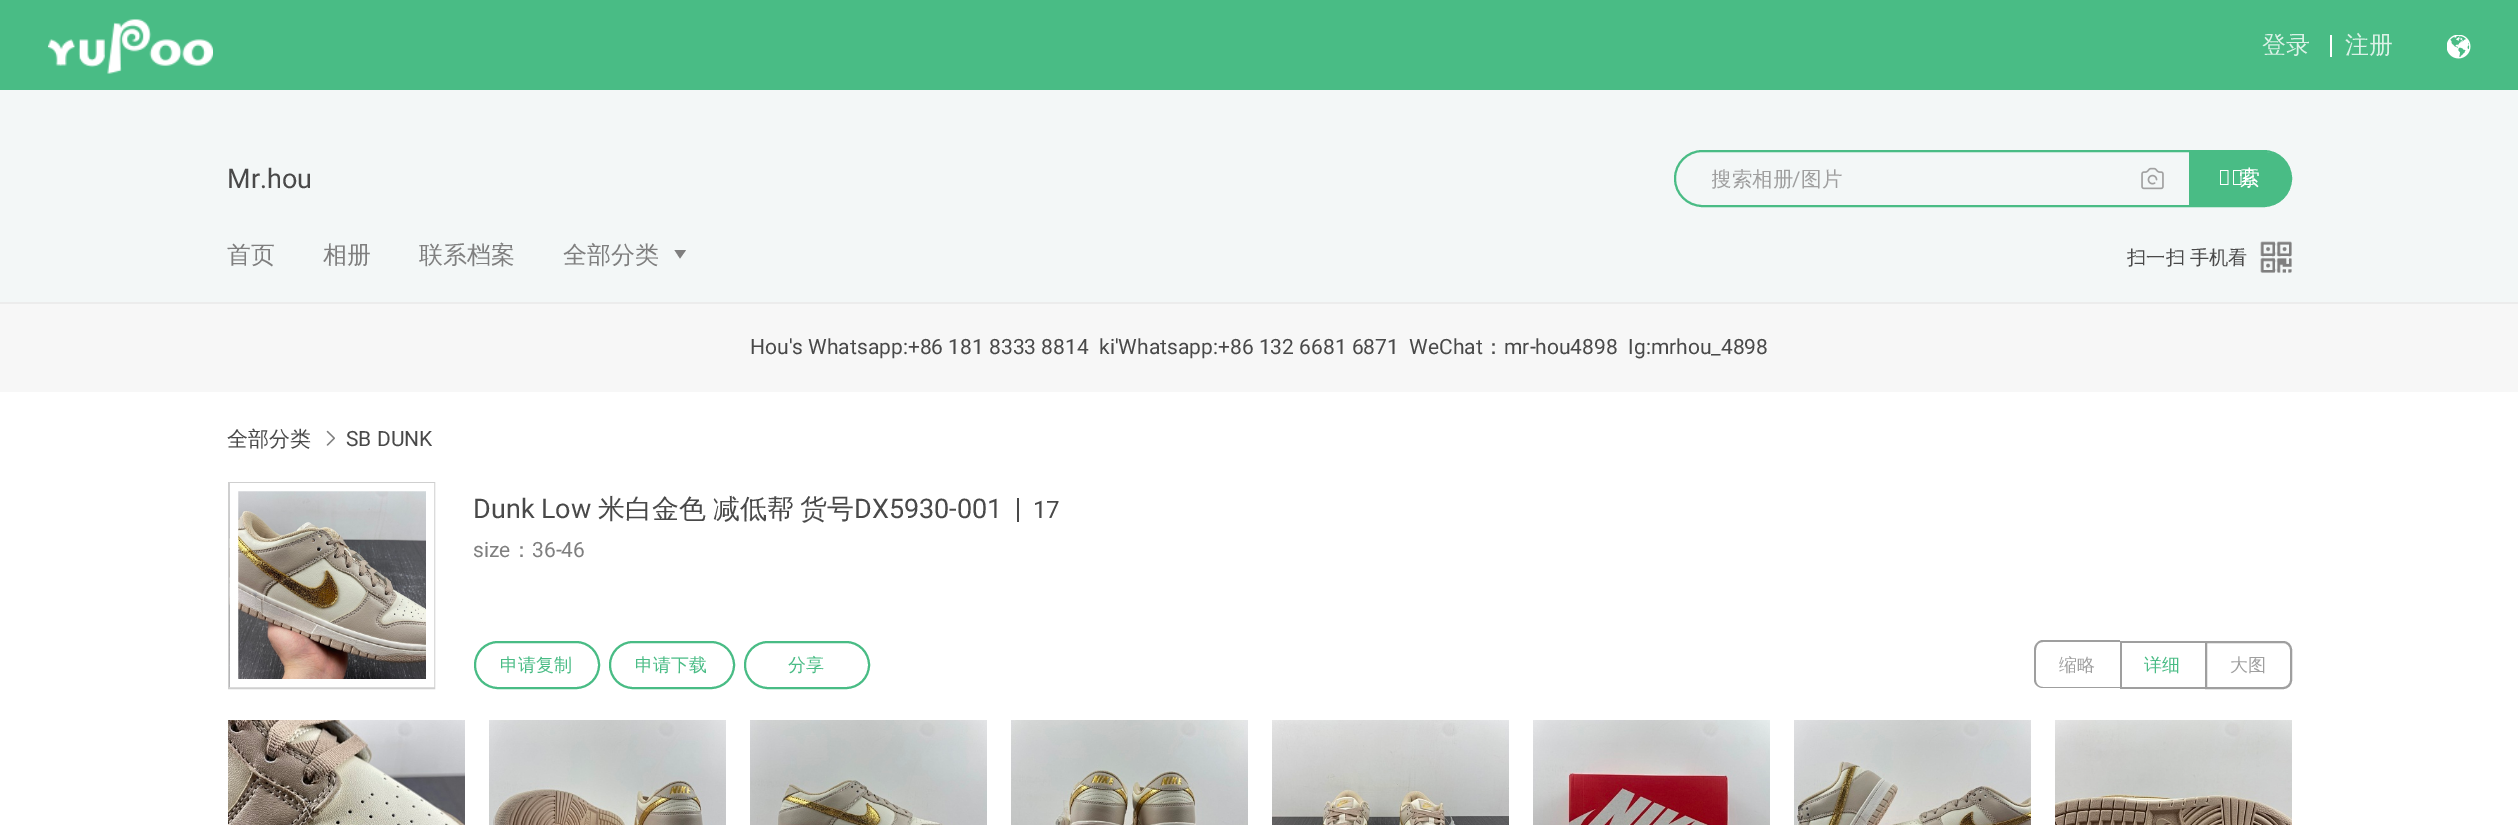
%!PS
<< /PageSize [2518 825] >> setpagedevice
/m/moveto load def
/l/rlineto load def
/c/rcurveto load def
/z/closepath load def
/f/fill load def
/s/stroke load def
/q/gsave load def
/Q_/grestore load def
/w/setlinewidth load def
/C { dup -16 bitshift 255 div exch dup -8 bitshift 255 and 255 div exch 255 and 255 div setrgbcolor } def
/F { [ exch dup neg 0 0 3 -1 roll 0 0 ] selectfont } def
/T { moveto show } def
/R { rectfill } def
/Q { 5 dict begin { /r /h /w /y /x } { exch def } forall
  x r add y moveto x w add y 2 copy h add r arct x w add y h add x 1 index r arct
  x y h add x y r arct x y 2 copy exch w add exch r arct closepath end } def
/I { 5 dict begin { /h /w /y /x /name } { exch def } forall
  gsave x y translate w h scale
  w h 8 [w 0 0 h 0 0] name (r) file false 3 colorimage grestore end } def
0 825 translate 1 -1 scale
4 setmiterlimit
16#FFFFFF C
0 0 2518 825 R
16#49BC85 C
0 0 2518 90 R
(1.rgb) 48 19 165 55 I
/WenQuanYiZenHei-Medium 24 F
16#DBF2E7 C
(登录) 2262 53 T
16#FFFFFF C
2330 35 2 22 R
16#DBF2E7 C
(注册) 2345 53 T
(2.rgb) 2447 35 24 24 I
16#F3F7F7 C
0 90 2518 212 R
/Roboto-Regular 27 F
16#494949 C
(Mr.hou) 227 188 T
16#49BC85 C
2 w
1675 151 616 55 27.5 Q s
q
1712 167 387 27 rectclip
/WenQuanYiZenHei-Medium 20.5 F
16#9F9F9F C
(搜索相册) 1711 186 T
Q_
/Roboto-Regular 20.5 F
16#9F9F9F C
(/) 1792 186 T
/WenQuanYiZenHei-Medium 20.5 F
(图片) 1801 186 T
(3.rgb) 2141 167 23 23 I
16#49BC85 C
2190 153 m 74 0 l 14.5 0 26 11.5 26 26 c 0 14.5 -11.5 26 -26 26 c -74 0 l z q f Q_
s
/NotoSans-Regular 21 F
16#FFFFFF C
(搜) 2218 185 T
/WenQuanYiZenHei-Medium 21 F
(索) 2239 185 T
/WenQuanYiZenHei-Medium 24 F
16#7F7F7F C
(首页) 227 263 T
(相册) 323 263 T
(联系档案) 419 263 T
(全部分类) 563 263 T
680 258.5 m -5.5 -8.5 l 11.5 0 l z f
/WenQuanYiZenHei-Medium 19.25 F
16#494949 C
2127 264 m -1 0 32 (扫一扫 手机看) widthshow
(4.rgb) 2260 241 32 32 I
16#F7F7F7 C
0 304 2518 88 R
16#ECECEC C
0 302 2518 2 R
/Roboto-Regular 21 F
16#494949 C
(Hou's Whatsapp:+86 181 8333 8814  ki'Whatsapp:+86 132 6681 6871  WeChat) 750 354 T
/WenQuanYiZenHei-Medium 21 F
(：) 1483 354 T
/Roboto-Regular 21 F
(mr-hou4898  Ig:mrhou_4898) 1504 354 T
/WenQuanYiZenHei-Medium 21 F
(全部分类) 227 446 T
(5.rgb) 326 430 9 16 I
/Roboto-Regular 21 F
(SB DUNK) 346 446 T
16#CFCFCF C
229 483 205 205 rectstroke
(6.rgb) 229 483 197 204 I
16#FFFFFF C
8 w
234 487 196 196 rectstroke
/Roboto-Regular 27 F
16#494949 C
(Dunk Low) 473 518 T
/WenQuanYiZenHei-Medium 27 F
(米白金色) 598 518 T
(减低帮) 713 518 T
(货号) 800 518 T
/Roboto-Regular 27 F
(DX5930-001) 854 518 T
1017 498 2 24 R
/Roboto-Regular 24 F
(17) 1033 518 T
/Roboto-Regular 21 F
16#7F7F7F C
(size) 473 557 T
/WenQuanYiZenHei-Medium 21 F
(：) 511 557 T
/Roboto-Regular 21 F
(36-46) 532 557 T
16#49BC85 C
2 w
475 642 124 46 23 Q s
/WenQuanYiZenHei-Medium 18 F
(申请复制) 500 671 T
610 642 124 46 23 Q s
(申请下载) 635 671 T
745 642 124 46 23 Q s
(分享) 788 671 T
16#9F9F9F C
2043 640 m 77 0 l 0 48 l -77 0 l -5 0 -9 -4 -9 -8 c 0 -30 l 0 -5 4 -10 9 -10 c z 2043 642 m 77 0 l 0 45 l -77 0 l -4 0 -7 -3 -7 -7 c 0 -30 l 0 -5 3 -8 7 -8 c z eofill
(缩略) 2059 671 T
2120 641 85 2 R
2120 687 85 2 R
2120 641 2 48 R
16#49BC85 C
(详细) 2144 671 T
16#9F9F9F C
2206 642 m 77 0 l 4.5 0 8 3.5 8 8 c 0 30 l 0 4.5 -3.5 8 -8 8 c -77 0 l z s
(大图) 2230 671 T
(7.rgb) 228 720 237 105 I
(8.rgb) 489 720 237 105 I
(9.rgb) 750 720 237 105 I
(10.rgb) 1011 720 237 105 I
(11.rgb) 1272 720 237 105 I
(12.rgb) 1533 720 237 105 I
(13.rgb) 1794 720 237 105 I
(14.rgb) 2055 720 237 105 I
showpage
